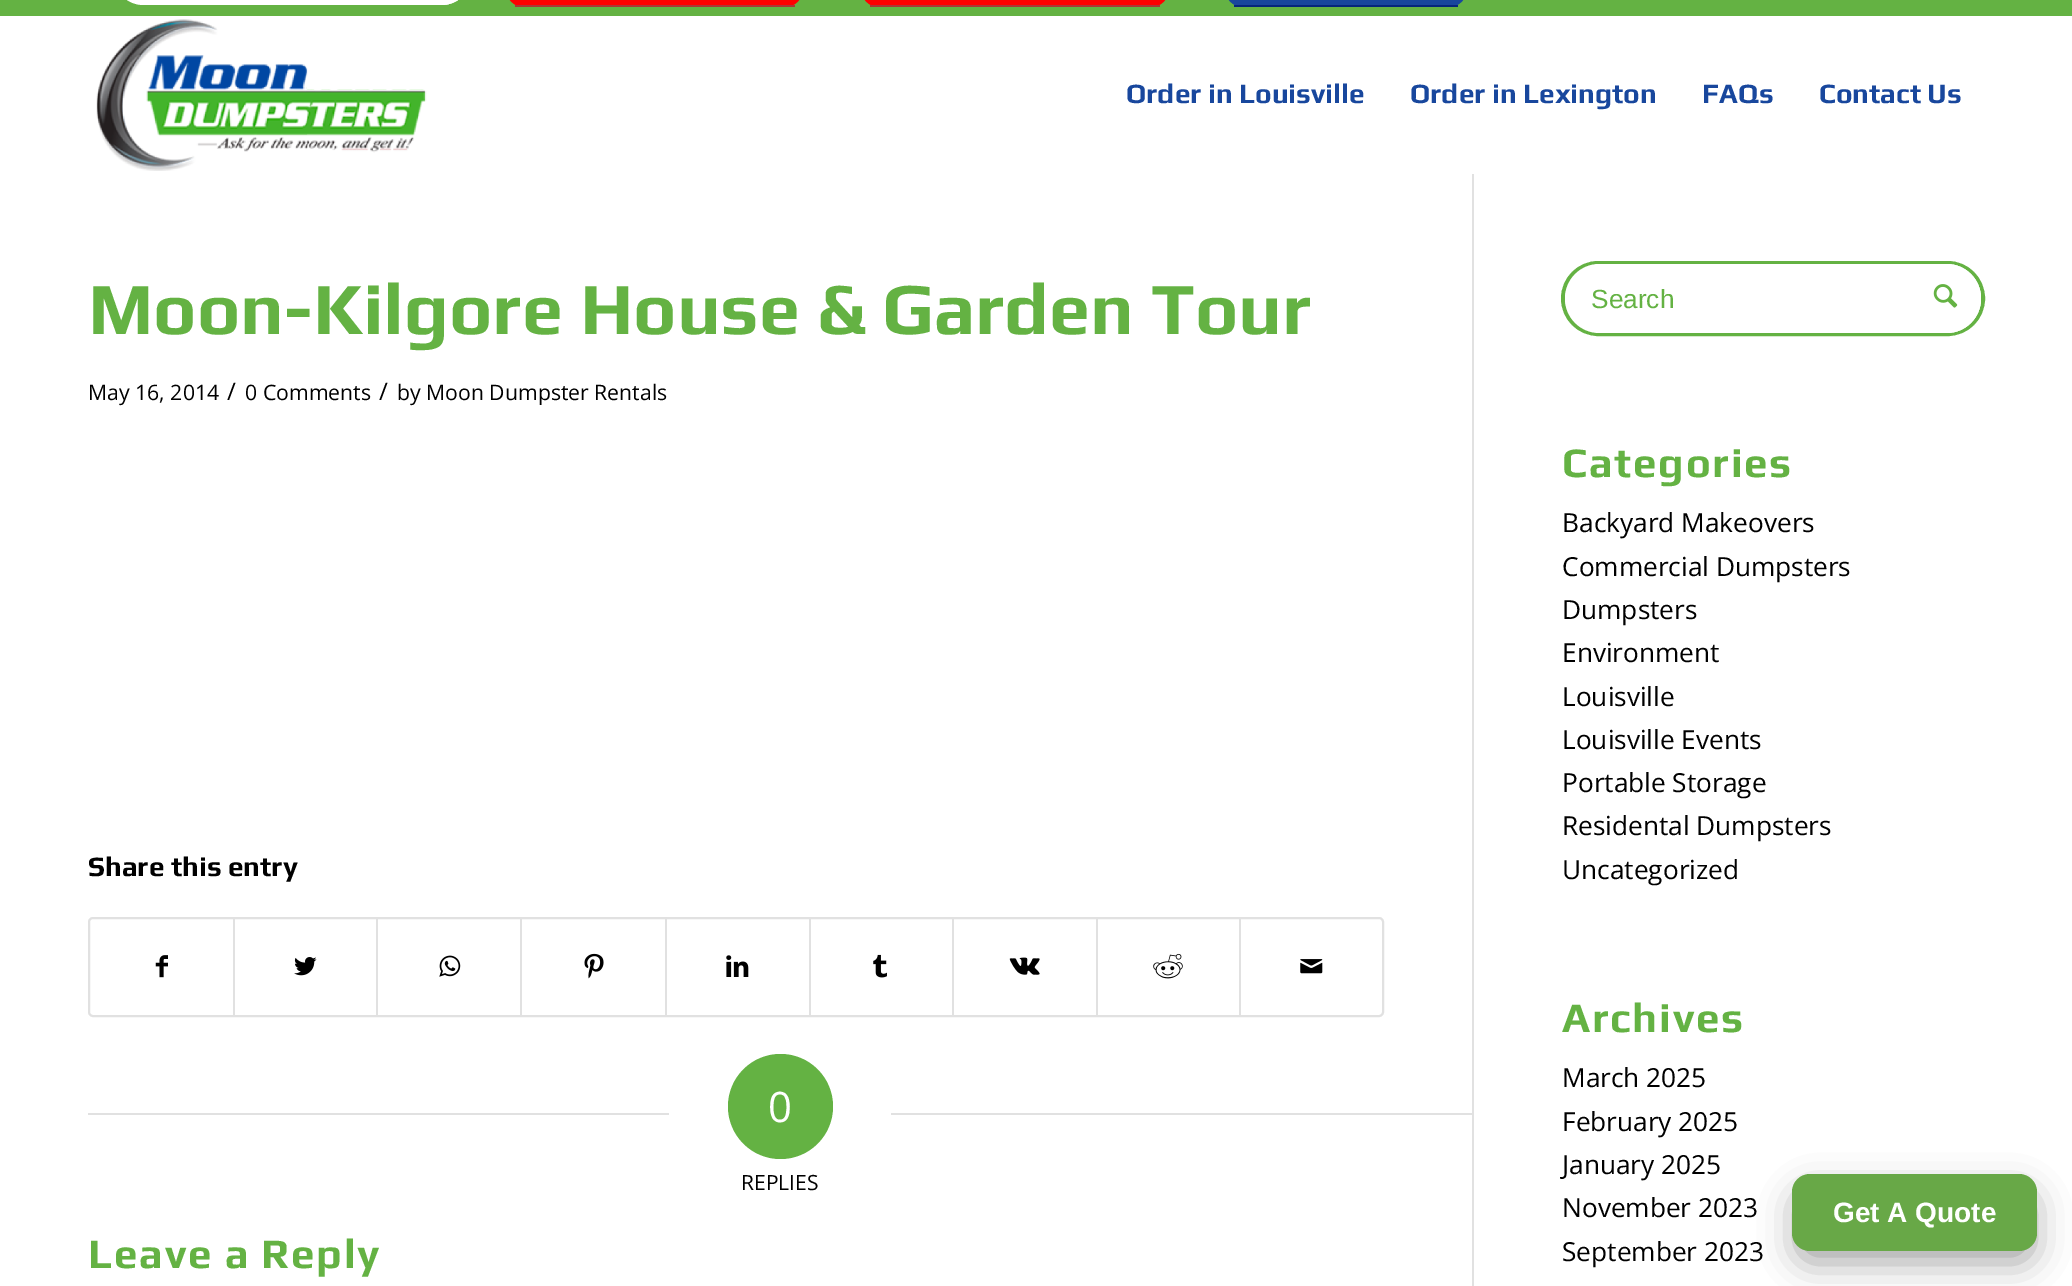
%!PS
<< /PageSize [2072 1286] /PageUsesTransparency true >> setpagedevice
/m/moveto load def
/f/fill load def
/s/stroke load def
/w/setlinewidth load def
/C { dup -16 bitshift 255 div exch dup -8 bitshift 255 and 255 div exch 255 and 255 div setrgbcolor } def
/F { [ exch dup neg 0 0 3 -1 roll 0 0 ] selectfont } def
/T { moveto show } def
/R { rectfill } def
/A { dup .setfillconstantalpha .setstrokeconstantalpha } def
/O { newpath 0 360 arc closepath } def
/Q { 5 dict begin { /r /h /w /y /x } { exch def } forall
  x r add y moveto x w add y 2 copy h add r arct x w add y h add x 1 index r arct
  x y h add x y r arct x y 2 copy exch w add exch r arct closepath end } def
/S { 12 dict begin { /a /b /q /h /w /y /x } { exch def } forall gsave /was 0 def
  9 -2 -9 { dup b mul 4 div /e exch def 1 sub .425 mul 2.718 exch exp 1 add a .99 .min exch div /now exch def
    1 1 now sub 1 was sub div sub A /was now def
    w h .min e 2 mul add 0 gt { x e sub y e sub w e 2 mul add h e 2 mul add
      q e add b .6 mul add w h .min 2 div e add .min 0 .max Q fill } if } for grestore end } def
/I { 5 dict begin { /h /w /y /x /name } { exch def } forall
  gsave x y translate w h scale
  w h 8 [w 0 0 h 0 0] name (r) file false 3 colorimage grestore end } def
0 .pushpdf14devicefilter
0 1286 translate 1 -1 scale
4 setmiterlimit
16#FFFFFF C
0 0 2072 1286 R
16#64B243 C
0 0 2072 16 R
16#FFFFFF C
114 -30 357 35 29.5 Q f
401 -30 70 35 29.5 Q f
16#FF0000 C
506 -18 297 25 18 Q f
16#AB3737 C
515 5 280 2 R
16#FF0000 C
861 -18 308 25 18 Q f
16#AB3737 C
870 5 290 2 R
16#18469D C
1225 -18 242 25 18 Q f
16#06257B C
1234 5 224 2 R
16#E1E1E1 C
1472 173 2 1113 R
16#FFFFFF C
1472 173 2 1 R
(1.rgb) 96 19 331 152 I
/Play-Bold 28 F
16#18479D C
(Order in Louisville) 1126 103 T
(Order in Lexington) 1410 103 T
(FAQs) 1702 103 T
(Contact Us) 1819 103 T
/Play-Bold 73.5 F
16#64B243 C
(Moon-Kilgore House & Garden Tour) 88 334 T
/OpenSans-Regular 21.25 F
16#000000 C
(May 16, 2014) 88 400 T
/OpenSans-Regular 24 F
(/) 227 400 T
/OpenSans-Regular 21.25 F
(0 Comments) 245 400 T
/OpenSans-Regular 24 F
(/) 379 400 T
/OpenSans-Regular 21.25 F
(by Moon Dumpster Rentals) 397 400 T
/Play-Bold 28 F
(Share this entry) 88 876 T
16#E1E1E1 C
2 w
89 918 1294 98 4 Q s
(2.rgb) 155 955 13 23 I
233 919 2 96 R
(3.rgb) 294 957 23 19 I
376 919 2 96 R
(4.rgb) 439 955 22 22 I
520 919 2 96 R
(5.rgb) 584 953 20 26 I
665 919 2 96 R
(6.rgb) 726 955 23 22 I
809 919 2 96 R
(7.rgb) 873 954 14 24 I
952 919 2 96 R
(8.rgb) 1009 957 31 18 I
1096 919 2 96 R
(9.rgb) 1153 953 30 26 I
1239 919 2 96 R
(10.rgb) 1300 959 23 15 I
88 1113 581 2 R
16#64B243 C
780.5 1106.5 52.5 O f
/OpenSans-Regular 42 F
16#FFFFFF C
(0) 768 1122 T
16#E1E1E1 C
891 1113 581 2 R
/OpenSans-Regular 21 F
16#000000 C
(REPLIES) 741 1190 T
/Play-Bold 42 F
16#64B243 C
88 1268 m 1.75 0 (Leave a Reply) ashow
4 w
1563 263 420 71 35.5 Q s
16#FFFFFF C
1565 264 416 69 34.5 Q f
/LiberationSans-Regular 26.25 F
16#64B243 C
(Search) 1591 308 T
16#FFFFFF C
1911 264 70 69 34.5 Q f
(11.rgb) 1933 284 25 24 I
/Play-Bold 42 F
16#64B243 C
1562 477 m 1.75 0 (Categories) ashow
/OpenSans-Regular 26.25 F
16#000000 C
(Backyard Makeovers) 1562 532 T
(Commercial Dumpsters) 1562 576 T
(Dumpsters) 1562 619 T
(Environment) 1562 662 T
(Louisville) 1562 706 T
(Louisville Events) 1562 749 T
(Portable Storage) 1562 792 T
(Residental Dumpsters) 1562 835 T
(Uncategorized) 1562 879 T
/Play-Bold 42 F
16#64B243 C
1562 1032 m 1.75 0 (Archives) ashow
/OpenSans-Regular 26.25 F
16#000000 C
(March 2025) 1562 1087 T
(February 2025) 1562 1131 T
(January 2025) 1562 1174 T
(November 2023) 1562 1217 T
(September 2023) 1562 1261 T
1796 1192 238 70 14 17.5 .35 S
16#68A847 C
1792 1174 245 77 18 Q f
/LiberationSans-Bold 28 F
16#FFFFFF C
(Get A Quote) 1833 1222 T
.poppdf14devicefilter showpage
